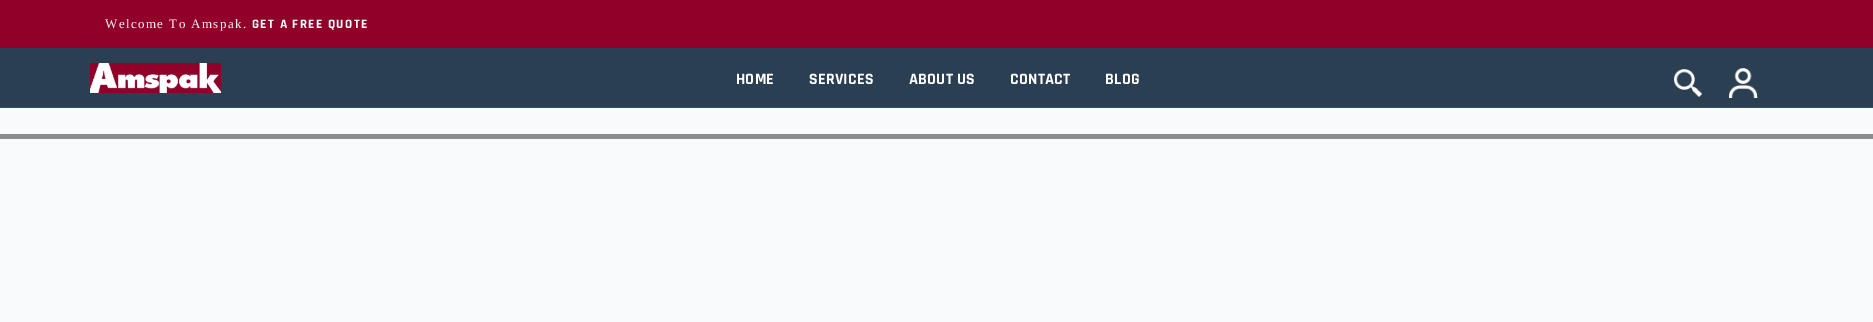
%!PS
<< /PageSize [1873 322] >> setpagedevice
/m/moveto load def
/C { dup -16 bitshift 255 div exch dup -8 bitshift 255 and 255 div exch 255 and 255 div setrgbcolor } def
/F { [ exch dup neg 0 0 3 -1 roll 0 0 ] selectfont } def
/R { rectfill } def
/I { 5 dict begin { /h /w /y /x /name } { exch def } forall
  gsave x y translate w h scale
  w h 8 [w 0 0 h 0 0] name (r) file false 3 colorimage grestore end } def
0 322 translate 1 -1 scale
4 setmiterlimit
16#F8FAFB C
0 0 1873 322 R
16#910029 C
0 0 1873 48 R
/LiberationSerif-Regular 13 F
16#FAF2F4 C
105 28 m 1.4 0 (Welcome To Amspak.) ashow
/Rajdhani-Bold 13 F
16#FFFFFF C
252 28 m 1.4 0 (GET A FREE QUOTE) ashow
16#2B3F52 C
0 48 1873 59 R
(1.rgb) 90 63 131 30 I
/Rajdhani-Bold 16 F
16#FFFFFF C
736 84 m .25 0 (HOME) ashow
809 84 m .25 0 (SERVICES) ashow
909 84 m .25 0 (ABOUT US) ashow
1010 84 m .25 0 (CONTACT) ashow
1105 84 m .25 0 (BLOG) ashow
(2.rgb) 1674 69 29 28 I
(3.rgb) 1729 68 29 30 I
16#3C4E60 C
0 107 1873 1 R
16#8C8C8C C
0 134 1873 5 R
showpage
